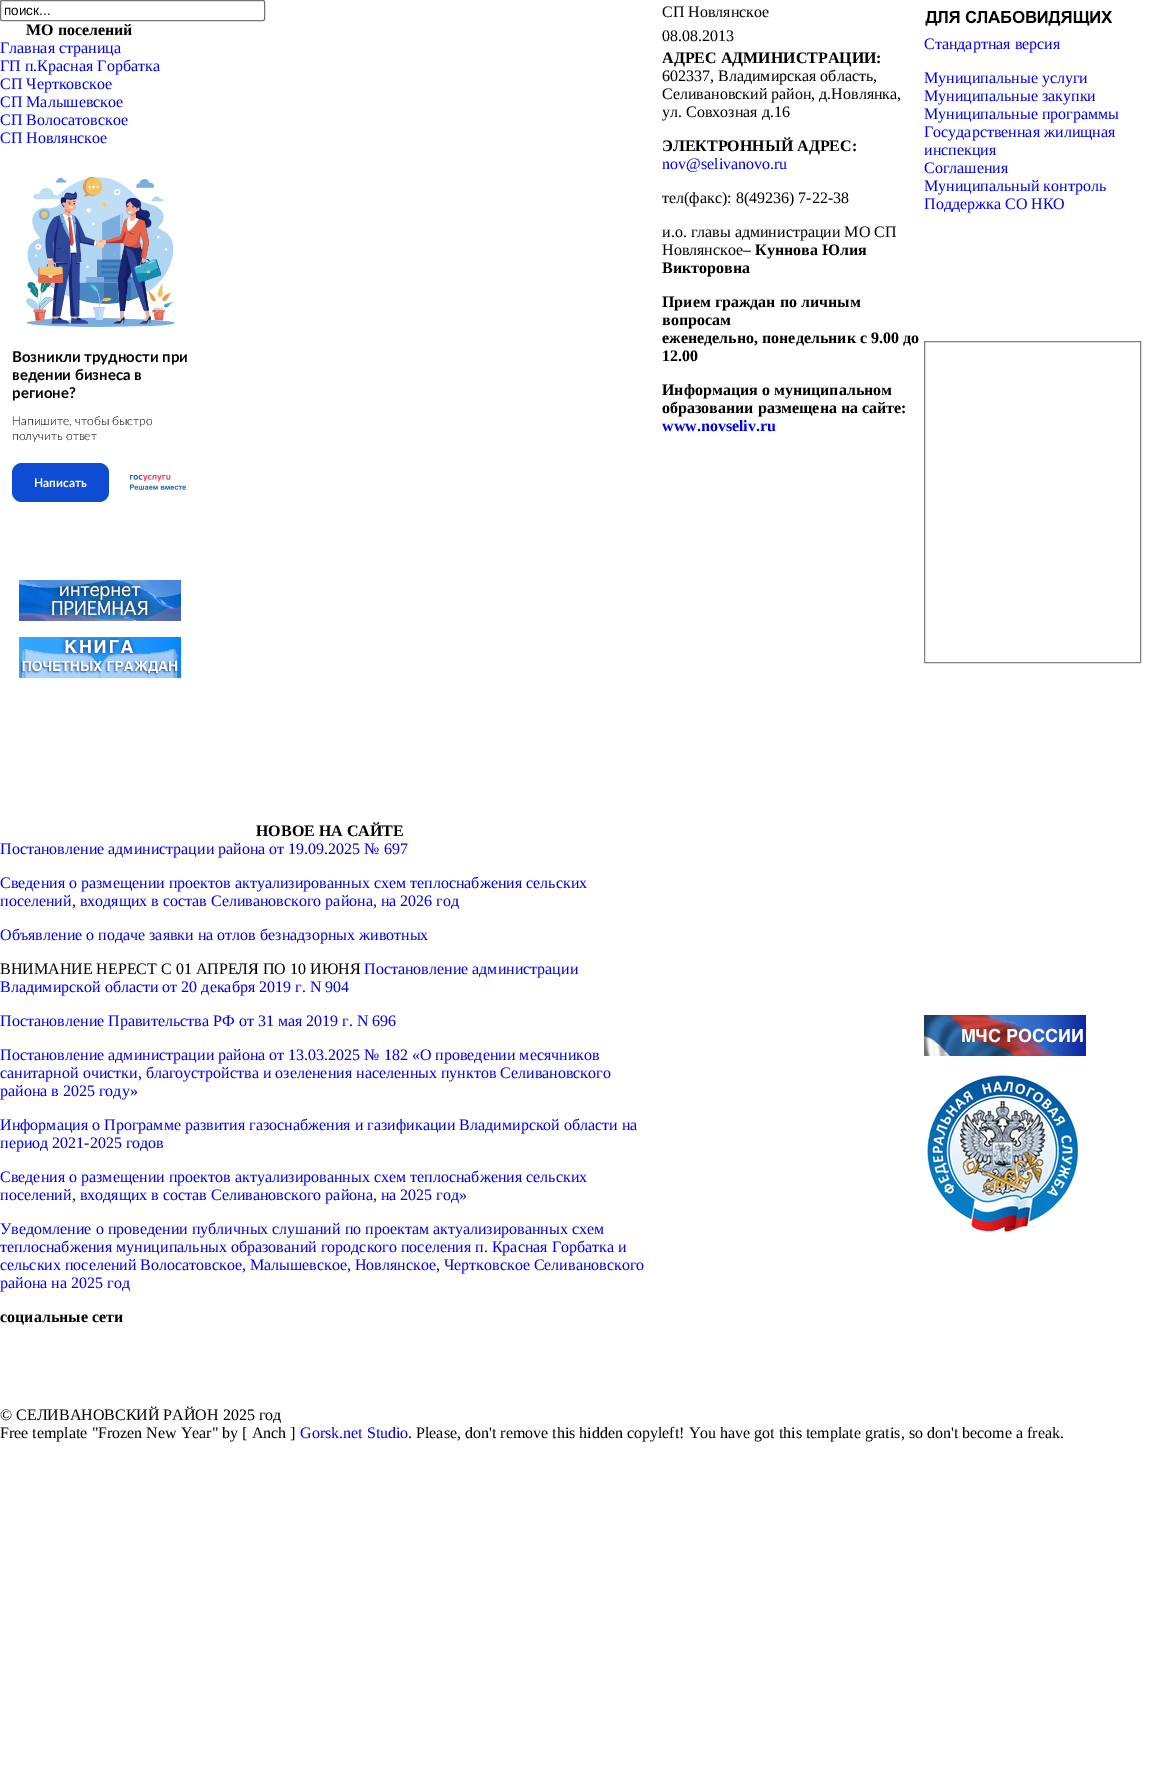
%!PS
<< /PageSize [1167 1783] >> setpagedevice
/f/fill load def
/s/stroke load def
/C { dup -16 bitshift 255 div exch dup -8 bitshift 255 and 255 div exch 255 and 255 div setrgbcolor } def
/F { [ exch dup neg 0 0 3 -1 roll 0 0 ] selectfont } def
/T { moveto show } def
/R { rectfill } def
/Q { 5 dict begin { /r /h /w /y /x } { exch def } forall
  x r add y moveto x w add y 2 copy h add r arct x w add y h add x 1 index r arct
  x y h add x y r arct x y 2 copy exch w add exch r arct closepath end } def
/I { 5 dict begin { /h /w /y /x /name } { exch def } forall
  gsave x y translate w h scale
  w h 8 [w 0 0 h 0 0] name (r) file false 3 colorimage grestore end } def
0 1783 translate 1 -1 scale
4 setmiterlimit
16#FFFFFF C
0 0 1167 1783 R
16#767676 C
.5 .5 264 20 1.5 Q s
/LiberationSans-Regular 13.5 F
16#000000 C
(поиск...) 4 15 T
/LiberationSerif-Bold 16 F
(МО поселений) 26 35 T
/LiberationSerif-Regular 16 F
16#0000EE C
(Главная страница) 0 53 T
(ГП п.Красная Горбатка) 0 71 T
(СП Чертковское) 0 89 T
(СП Малышевское) 0 107 T
(СП Волосатовское) 0 125 T
(СП Новлянское) 0 143 T
(1.rgb) 26 177 149 150 I
/Lato-Bold 15 F
16#000000 C
(Возникли трудности при) 12 362 T
(ведении бизнеса в) 12 380 T
(регионе?) 12 398 T
/Lato-Light 12 F
(Напишите, чтобы быстро) 12 425 T
(получить ответ) 12 440 T
16#0D4CD3 C
12 463 97 39 10 Q f
/Lato-Bold 12 F
16#FFFFFF C
(Написать) 34 487 T
(2.rgb) 130 475 56 15 I
(3.rgb) 19 580 162 41 I
(4.rgb) 19 637 162 41 I
/LiberationSerif-Bold 16 F
16#000000 C
(НОВОЕ НА САЙТЕ) 256 836 T
/LiberationSerif-Regular 16 F
16#0000EE C
(Постановление администрации района от 19.09.2025 № 697) 0 854 T
(Сведения о размещении проектов актуализированных схем теплоснабжения сельских) 0 888 T
(поселений, входящих в состав Селивановского района, на 2026 год) 0 906 T
(Объявление о подаче заявки на отлов безнадзорных животных) 0 940 T
16#000000 C
(ВНИМАНИЕ НЕРЕСТ С 01 АПРЕЛЯ ПО 10 ИЮНЯ) 0 974 T
16#0000EE C
(Постановление администрации) 364 974 T
(Владимирской области от 20 декабря 2019 г. N 904) 0 992 T
(Постановление Правительства РФ от 31 мая 2019 г. N 696) 0 1026 T
(Постановление администрации района от 13.03.2025 № 182 «О проведении месячников) 0 1060 T
(санитарной очистки, благоустройства и озеленения населенных пунктов Селивановского) 0 1078 T
(района в 2025 году») 0 1096 T
(Информация о Программе развития газоснабжения и газификации Владимирской области на) 0 1130 T
(период 2021-2025 годов) 0 1148 T
(Сведения о размещении проектов актуализированных схем теплоснабжения сельских) 0 1182 T
(поселений, входящих в состав Селивановского района, на 2025 год») 0 1200 T
(Уведомление о проведении публичных слушаний по проектам актуализированных схем) 0 1234 T
(теплоснабжения муниципальных образований городского поселения п. Красная Горбатка и) 0 1252 T
(сельских поселений Волосатовское, Малышевское, Новлянское, Чертковское Селивановского) 0 1270 T
(района на 2025 год) 0 1288 T
/LiberationSerif-Bold 16 F
16#000000 C
(социальные сети) 0 1322 T
/LiberationSerif-Regular 16 F
(СП Новлянское) 662 17 T
(08.08.2013) 662 41 T
/LiberationSerif-Bold 16 F
(АДРЕС АДМИНИСТРАЦИИ:) 662 63 T
/LiberationSerif-Regular 16 F
(602337, Владимирская область,) 662 81 T
(Селивановский район, д.Новлянка,) 662 99 T
(ул. Совхозная д.16) 662 117 T
/LiberationSerif-Bold 16 F
(ЭЛЕКТРОННЫЙ АДРЕС:) 662 151 T
/LiberationSerif-Regular 16 F
16#0000EE C
(nov@selivanovo.ru) 662 169 T
16#000000 C
(тел\(факс\): 8\(49236\) 7-22-38) 662 203 T
(и.о. главы администрации МО СП) 662 237 T
(Новлянское–) 662 255 T
/LiberationSerif-Bold 16 F
(Куннова Юлия) 755 255 T
(Викторовна) 662 273 T
(Прием граждан по личным) 662 307 T
(вопросам) 662 325 T
(еженедельно, понедельник с 9.00 до) 662 343 T
(12.00) 662 361 T
(Информация о муниципальном) 662 395 T
(образовании размещена на сайте:) 662 413 T
16#0000EE C
(www.novseliv.ru) 662 431 T
(5.rgb) 925 10 188 16 I
/LiberationSerif-Regular 16 F
(Стандартная версия) 924 49 T
(Муниципальные услуги) 924 83 T
(Муниципальные закупки) 924 101 T
(Муниципальные программы) 924 119 T
(Государственная жилищная) 924 137 T
(инспекция) 924 155 T
(Соглашения) 924 173 T
(Муниципальный контроль) 924 191 T
(Поддержка СО НКО) 924 209 T
16#808080 C
924.5 341.5 216 321 rectstroke
(6.rgb) 924 1015 162 41 I
(7.rgb) 927 1075 152 157 I
16#000000 C
(© СЕЛИВАНОВСКИЙ РАЙОН 2025 год) 0 1420 T
(Free template "Frozen New Year" by [ Anch ]) 0 1438 T
16#0000EE C
(Gorsk.net Studio) 300 1438 T
16#000000 C
(. Please, don't remove this hidden copyleft! You have got this template gratis, so don't become a freak.) 408 1438 T
showpage
